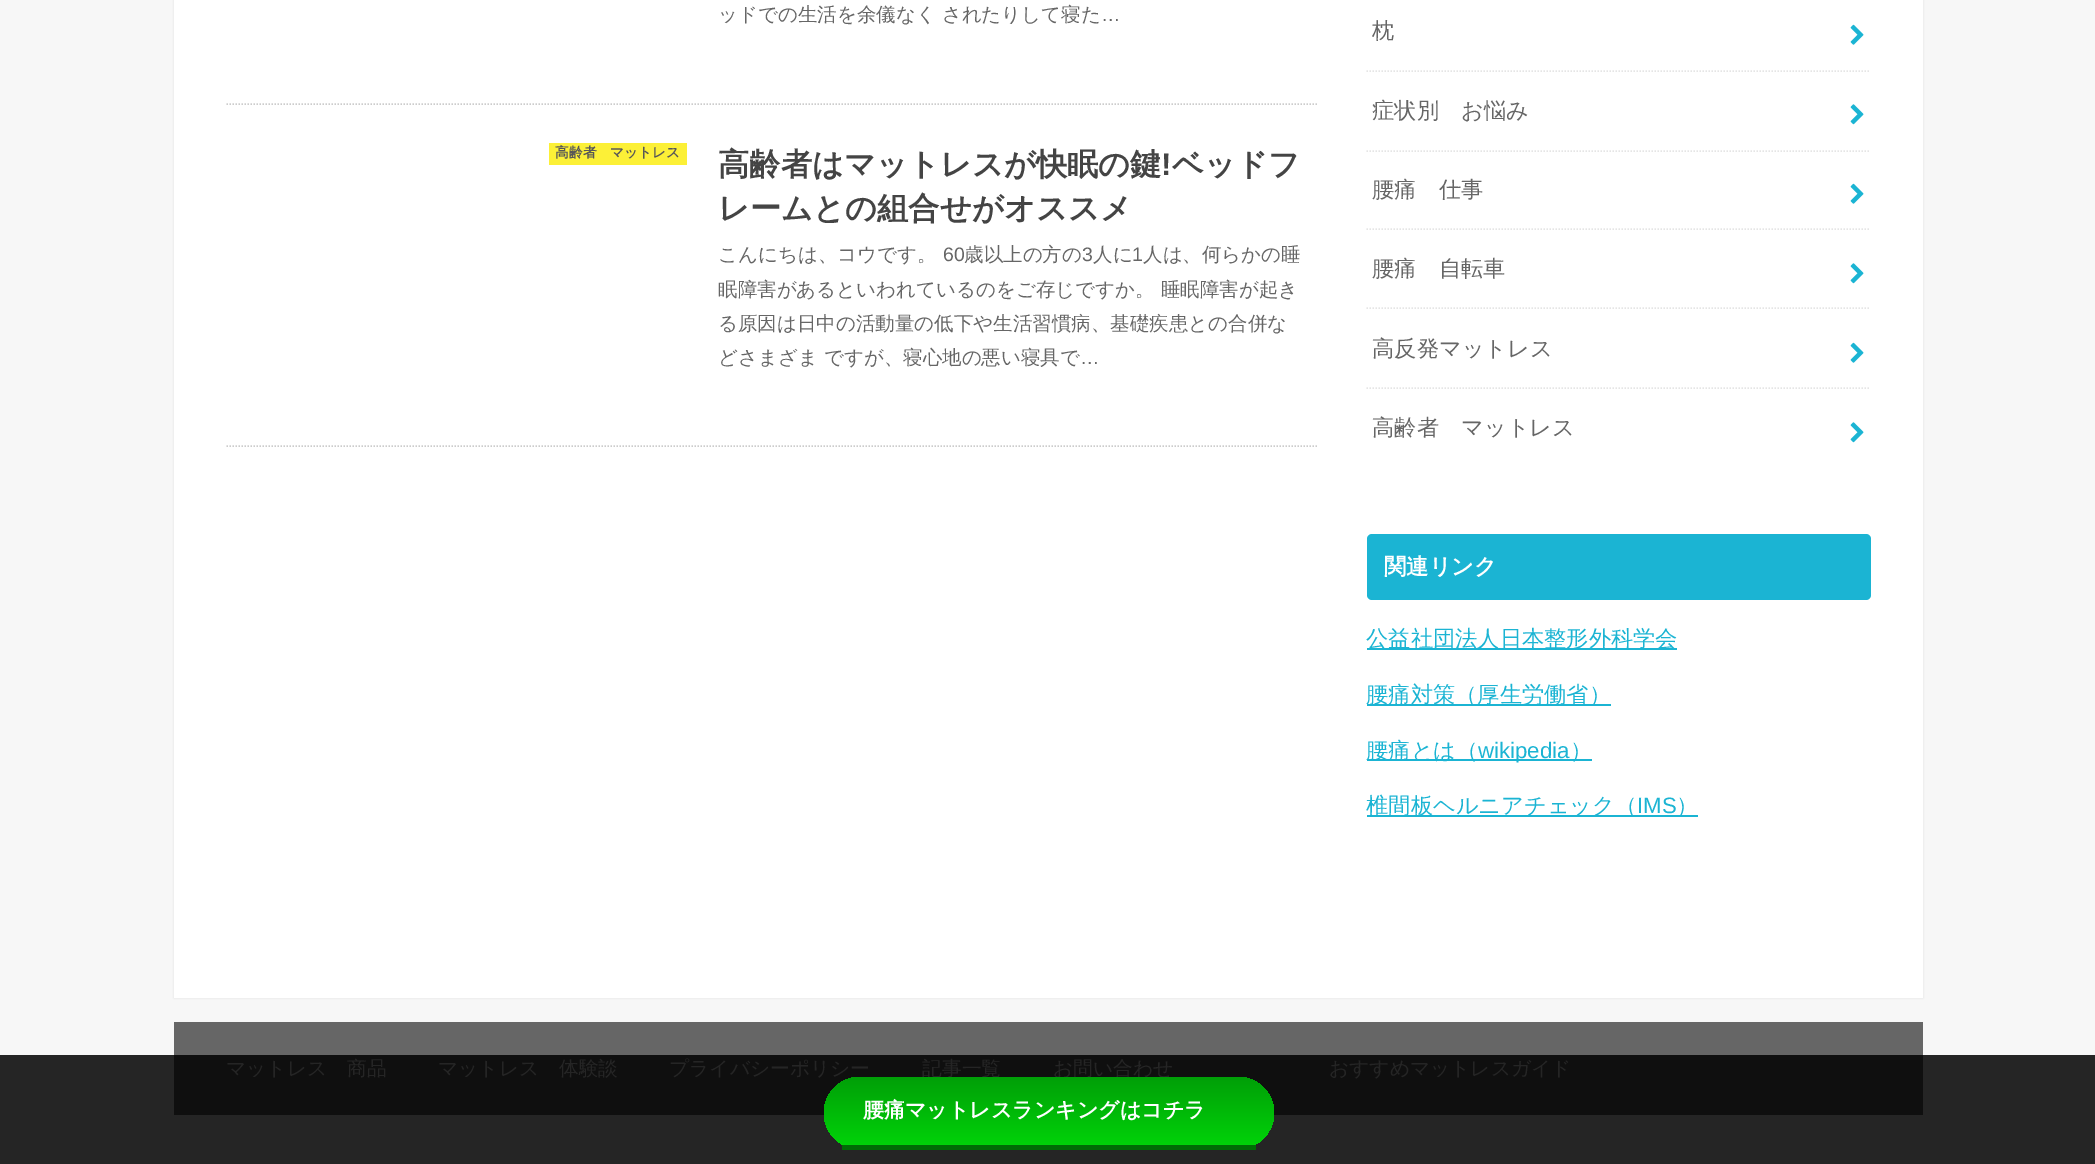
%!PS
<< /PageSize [2095 1164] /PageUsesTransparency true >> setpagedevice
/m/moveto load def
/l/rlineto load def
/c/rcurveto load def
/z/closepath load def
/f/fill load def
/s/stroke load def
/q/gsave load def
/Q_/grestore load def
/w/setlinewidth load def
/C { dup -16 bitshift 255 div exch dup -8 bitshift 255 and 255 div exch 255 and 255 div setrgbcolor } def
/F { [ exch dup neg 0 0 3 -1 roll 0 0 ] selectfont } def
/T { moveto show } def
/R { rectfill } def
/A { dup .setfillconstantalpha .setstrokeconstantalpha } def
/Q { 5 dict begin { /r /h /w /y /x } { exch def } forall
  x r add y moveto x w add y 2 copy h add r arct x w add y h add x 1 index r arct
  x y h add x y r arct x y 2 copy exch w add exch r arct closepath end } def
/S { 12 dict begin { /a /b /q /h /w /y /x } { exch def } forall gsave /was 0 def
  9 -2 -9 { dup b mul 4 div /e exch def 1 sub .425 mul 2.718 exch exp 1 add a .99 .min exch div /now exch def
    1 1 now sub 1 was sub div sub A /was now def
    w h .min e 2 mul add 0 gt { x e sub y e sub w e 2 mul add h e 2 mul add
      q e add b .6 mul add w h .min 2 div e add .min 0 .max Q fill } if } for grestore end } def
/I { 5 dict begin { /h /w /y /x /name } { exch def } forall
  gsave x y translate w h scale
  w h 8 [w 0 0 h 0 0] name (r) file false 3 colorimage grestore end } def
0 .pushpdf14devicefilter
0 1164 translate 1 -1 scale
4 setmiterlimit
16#F7F7F7 C
0 0 2095 1164 R
16#252525 C
0 1055 2095 109 R
16#DDDDDD C
174 -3 1749 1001 0 1 1 S
16#FFFFFF C
174 0 1749 998 R
16#CCCCCC C
1.5 w
[1.5 1.5] 0 setdash
226.5 104 m 1092 0 l s
/WenQuanYiZenHei-Medium 19.5 F
16#666666 C
(ッドでの生活を余儀なく されたりして寝た) 718 21 T
/LiberationSans-Regular 19.5 F
(…) 1101 21 T
16#CCCCCC C
226.5 446 m 1092 0 l s
16#FCF037 C
549 143 138 22 R
/WenQuanYiZenHei-Bold 13.75 F
16#575757 C
(高齢者　マットレス) 555 157 T
/WenQuanYiZenHei-Bold 31.25 F
16#444444 C
(高齢者はマットレスが快眠の鍵) 718 175 T
/LiberationSans-Bold 31.25 F
(!) 1161 175 T
/WenQuanYiZenHei-Bold 31.25 F
(ベッドフ) 1172 175 T
(レームとの組合せがオススメ) 718 219 T
/WenQuanYiZenHei-Medium 19.5 F
16#666666 C
(こんにちは、コウです。) 718 261 T
/LiberationSans-Regular 19.5 F
(60) 943 261 T
/WenQuanYiZenHei-Medium 19.5 F
(歳以上の方の) 964 261 T
/LiberationSans-Regular 19.5 F
(3) 1082 261 T
/WenQuanYiZenHei-Medium 19.5 F
(人に) 1093 261 T
/LiberationSans-Regular 19.5 F
(1) 1132 261 T
/WenQuanYiZenHei-Medium 19.5 F
(人は、何らかの睡) 1143 261 T
(眠障害があるといわれているのをご存じですか。 睡眠障害が起き) 718 296 T
(る原因は日中の活動量の低下や生活習慣病、基礎疾患との合併な) 718 330 T
(どさまざま ですが、寝心地の悪い寝具で) 718 364 T
/LiberationSans-Regular 19.5 F
(…) 1080 364 T
16#E5E5E5 C
1366.5 71 m 504 0 l s
/WenQuanYiZenHei-Medium 22.25 F
16#666666 C
(枕) 1372 38 T
(1.rgb) 1850 24 14 21 I
16#E5E5E5 C
1366.5 151 m 504 0 l s
16#666666 C
(症状別　お悩み) 1372 118 T
(2.rgb) 1850 104 14 21 I
16#E5E5E5 C
1366.5 229 m 504 0 l s
16#666666 C
(腰痛　仕事) 1372 197 T
(1.rgb) 1850 183 14 21 I
16#E5E5E5 C
1366.5 308 m 504 0 l s
16#666666 C
(腰痛　自転車) 1372 276 T
(2.rgb) 1850 263 14 21 I
16#E5E5E5 C
1366.5 388 m 504 0 l s
16#666666 C
(高反発マットレス) 1372 356 T
(1.rgb) 1850 342 14 21 I
(高齢者　マットレス) 1372 435 T
(2.rgb) 1850 422 14 21 I
16#1BB4D3 C
1367 534 504 66 5 Q f
/WenQuanYiZenHei-Bold 22.25 F
16#FFFFFF C
(関連リンク) 1384 574 T
16#1BB4D3 C
1367 648 310 2 R
/WenQuanYiZenHei-Medium 22.25 F
(公益社団法人日本整形外科学会) 1366 646 T
1367 704 244 2 R
(腰痛対策（厚生労働省）) 1366 702 T
1367 759 225 2 R
(腰痛とは（) 1366 758 T
/LiberationSans-Regular 22.25 F
(wikipedia) 1478 758 T
/WenQuanYiZenHei-Medium 22.25 F
(）) 1570 758 T
1367 815 331 2 R
(椎間板ヘルニアチェック（) 1366 813 T
/LiberationSans-Regular 22.25 F
(IMS) 1637 813 T
/WenQuanYiZenHei-Medium 22.25 F
(）) 1676 813 T
16#666666 C
174 1022 1749 33 R
16#0F0F0F C
174 1055 1749 60 R
/WenQuanYiZenHei-Medium 19.75 F
16#252525 C
(マットレス　商品) 226 1075 T
(マットレス　体験談) 438 1075 T
(プライバシーポリシー) 669 1075 T
(記事一覧) 922 1075 T
(お問い合わせ) 1053 1075 T
(おすすめマットレスガイド) 1329 1075 T
q
824 1077 450 72 36 Q clip newpath
q 860 1077 m 378 0 l 20 0 36 16 36 36 c 0 32 l -450 0 l 0 -32 l 0 -20 16 -36 36 -36 c z clip newpath
<< /ShadingType 2 /ColorSpace /DeviceRGB /Coords [1049 1077 1049 1145] /Extend [true true] /Function << /FunctionType 2 /Domain [0 1] /C0 [0 .624 .027] /C1 [0 .824 .035] /N 1 >> >> shfill Q_
Q_
16#006C05 C
842 1145 414 5 R
/WenQuanYiZenHei-Bold 21 F
16#FFFFFF C
(腰痛マットレスランキングはコチラ) 863 1117 T
.poppdf14devicefilter showpage
